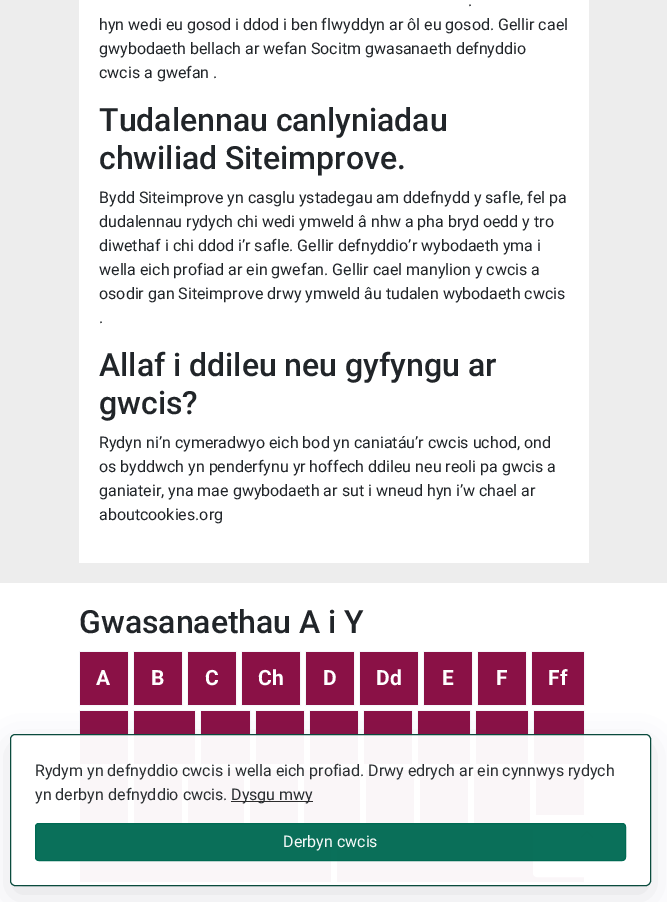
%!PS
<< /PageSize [667 902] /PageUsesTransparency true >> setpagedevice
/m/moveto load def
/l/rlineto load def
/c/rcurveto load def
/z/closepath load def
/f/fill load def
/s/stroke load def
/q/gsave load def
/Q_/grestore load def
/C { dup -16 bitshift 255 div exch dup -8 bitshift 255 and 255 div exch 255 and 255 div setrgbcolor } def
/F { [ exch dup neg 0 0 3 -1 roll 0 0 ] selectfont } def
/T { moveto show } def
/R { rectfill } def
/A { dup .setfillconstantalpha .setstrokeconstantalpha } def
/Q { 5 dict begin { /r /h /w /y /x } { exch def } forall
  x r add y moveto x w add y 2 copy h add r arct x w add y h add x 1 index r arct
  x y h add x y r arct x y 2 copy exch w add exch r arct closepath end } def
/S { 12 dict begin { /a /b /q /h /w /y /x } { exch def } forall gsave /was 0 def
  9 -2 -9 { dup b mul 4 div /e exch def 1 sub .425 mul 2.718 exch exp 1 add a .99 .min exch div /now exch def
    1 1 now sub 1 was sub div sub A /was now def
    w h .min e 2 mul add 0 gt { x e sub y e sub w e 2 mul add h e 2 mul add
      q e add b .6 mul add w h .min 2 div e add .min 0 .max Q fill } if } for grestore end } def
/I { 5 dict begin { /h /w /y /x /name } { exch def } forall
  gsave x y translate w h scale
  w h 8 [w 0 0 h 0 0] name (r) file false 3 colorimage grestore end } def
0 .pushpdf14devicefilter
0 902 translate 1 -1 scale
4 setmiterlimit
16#EDEDED C
0 0 667 902 R
16#FFFFFF C
79 0 510 563 R
/Roboto-Regular 16 F
16#212529 C
(.) 468 6 T
(hyn wedi eu gosod i ddod i ben flwyddyn ar ôl eu gosod. Gellir cael) 99 30 T
(gwybodaeth bellach ar wefan Socitm gwasanaeth defnyddio) 99 54 T
(cwcis a gwefan .) 99 78 T
/Roboto-Medium 32 F
(Tudalennau canlyniadau) 99 131 T
(chwiliad Siteimprove.) 99 169 T
/Roboto-Regular 16 F
(Bydd Siteimprove yn casglu ystadegau am ddefnydd y safle, fel pa) 99 203 T
(dudalennau rydych chi wedi ymweld â nhw a pha bryd oedd y tro) 99 227 T
(diwethaf i chi ddod i’r safle. Gellir defnyddio’r wybodaeth yma i) 99 251 T
(wella eich profiad ar ein gwefan. Gellir cael manylion y cwcis a) 99 275 T
(osodir gan Siteimprove drwy ymweld âu tudalen wybodaeth cwcis) 99 299 T
(.) 99 323 T
/Roboto-Medium 32 F
(Allaf i ddileu neu gyfyngu ar) 99 376 T
(gwcis?) 99 414 T
/Roboto-Regular 16 F
(Rydyn ni’n cymeradwyo eich bod yn caniatáu’r cwcis uchod, ond) 99 448 T
(os byddwch yn penderfynu yr hoffech ddileu neu reoli pa gwcis a) 99 472 T
(ganiateir, yna mae gwybodaeth ar sut i wneud hyn i’w chael ar) 99 496 T
(aboutcookies.org) 99 520 T
16#FFFFFF C
0 583 667 319 R
/Roboto-Medium 32 F
16#212529 C
(Gwasanaethau A i Y) 79 633 T
16#F6F7FA C
79.5 651.5 49 54 rectstroke
16#8A1146 C
80 652 48 53 R
/Roboto-Bold 21 F
16#FFFFFF C
(A) 96 685 T
16#F6F7FA C
133.5 651.5 49 54 rectstroke
16#8A1146 C
134 652 48 53 R
16#FFFFFF C
(B) 151 685 T
16#F6F7FA C
187.5 651.5 49 54 rectstroke
16#8A1146 C
188 652 48 53 R
16#FFFFFF C
(C) 205 685 T
16#F6F7FA C
241.5 651.5 59 54 rectstroke
16#8A1146 C
242 652 58 53 R
16#FFFFFF C
(Ch) 258 685 T
16#F6F7FA C
305.5 651.5 49 54 rectstroke
16#8A1146 C
306 652 48 53 R
16#FFFFFF C
(D) 323 685 T
16#F6F7FA C
359.5 651.5 59 54 rectstroke
16#8A1146 C
360 652 58 53 R
16#FFFFFF C
(Dd) 376 685 T
16#F6F7FA C
423.5 651.5 49 54 rectstroke
16#8A1146 C
424 652 48 53 R
16#FFFFFF C
(E) 442 685 T
16#F6F7FA C
477.5 651.5 49 54 rectstroke
16#8A1146 C
478 652 48 53 R
16#FFFFFF C
(F) 496 685 T
16#F6F7FA C
531.5 651.5 53 54 rectstroke
16#8A1146 C
532 652 52 53 R
16#FFFFFF C
(Ff) 548 685 T
16#F6F7FA C
79.5 710.5 49 54 rectstroke
16#8A1146 C
80 711 48 53 R
16#F6F7FA C
133.5 710.5 62 54 rectstroke
16#8A1146 C
134 711 61 53 R
16#F6F7FA C
200.5 710.5 50 54 rectstroke
16#8A1146 C
201 711 49 53 R
16#F6F7FA C
255.5 710.5 49 54 rectstroke
16#8A1146 C
256 711 48 53 R
16#F6F7FA C
309.5 710.5 49 54 rectstroke
16#8A1146 C
310 711 48 53 R
16#F6F7FA C
363.5 710.5 49 54 rectstroke
16#8A1146 C
364 711 48 53 R
16#F6F7FA C
417.5 710.5 53 54 rectstroke
16#8A1146 C
418 711 52 53 R
16#F6F7FA C
475.5 710.5 53 54 rectstroke
16#8A1146 C
476 711 52 53 R
16#F6F7FA C
533.5 710.5 51 54 rectstroke
16#8A1146 C
534 711 50 53 R
16#F6F7FA C
79.5 769.5 49 54 rectstroke
16#8A1146 C
80 770 48 53 R
16#F6F7FA C
133.5 769.5 49 54 rectstroke
16#8A1146 C
134 770 48 53 R
16#F6F7FA C
187.5 769.5 57 54 rectstroke
16#8A1146 C
188 770 56 53 R
16#F6F7FA C
249.5 769.5 49 54 rectstroke
16#8A1146 C
250 770 48 53 R
16#F6F7FA C
303.5 769.5 57 54 rectstroke
16#8A1146 C
304 770 56 53 R
16#F6F7FA C
365.5 769.5 49 54 rectstroke
16#8A1146 C
366 770 48 53 R
16#F6F7FA C
419.5 769.5 49 54 rectstroke
16#8A1146 C
420 770 48 53 R
16#F6F7FA C
473.5 769.5 57 54 rectstroke
16#8A1146 C
474 770 56 53 R
16#F6F7FA C
535.5 769.5 49 54 rectstroke
16#8A1146 C
536 770 48 46 R
16#F6F7FA C
79.5 828.5 252 54 rectstroke
16#8A1146 C
80 829 251 53 R
16#F6F7FA C
336.5 828.5 248 54 rectstroke
16#8A1146 C
337 829 247 53 R
16#F8F9FA C
533.5 815.5 108 61 3.5 Q q f Q_
s
(1.rgb) 580 829 14 10 I
q
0 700 m 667 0 l 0 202 l -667 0 l z 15 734 m 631 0 l 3 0 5 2 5 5 c 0 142 l 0 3 -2 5 -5 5 c -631 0 l -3 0 -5 -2 -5 -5 c 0 -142 l 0 -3 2 -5 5 -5 c z eoclip newpath
16#363D4D C
15 749 631 142 0 16 .19 S
Q_
0.96 A
16#FFFFFF C
10 734 641 152 5 Q f
16#004435 C
10.5 734.5 640 151 4.5 Q s
/Roboto-Regular 16 F
1 A
16#2A2E31 C
(Rydym yn defnyddio cwcis i wella eich profiad. Drwy edrych ar ein cynnwys rydych) 35 776 T
(yn derbyn) 35 800 T
(defnyddio cwcis.) 108 800 T
0.82 A
16#000000 C
231 801 82 1 R
1 A
16#2A2E31 C
(Dysgu mwy) 231 800 T
0.96 A
16#006A53 C
35 823 591 38 4 Q f
35.5 823.5 590 37 3.5 Q s
1 A
16#F5F9F8 C
(Derbyn cwcis) 283 847 T
.poppdf14devicefilter showpage
